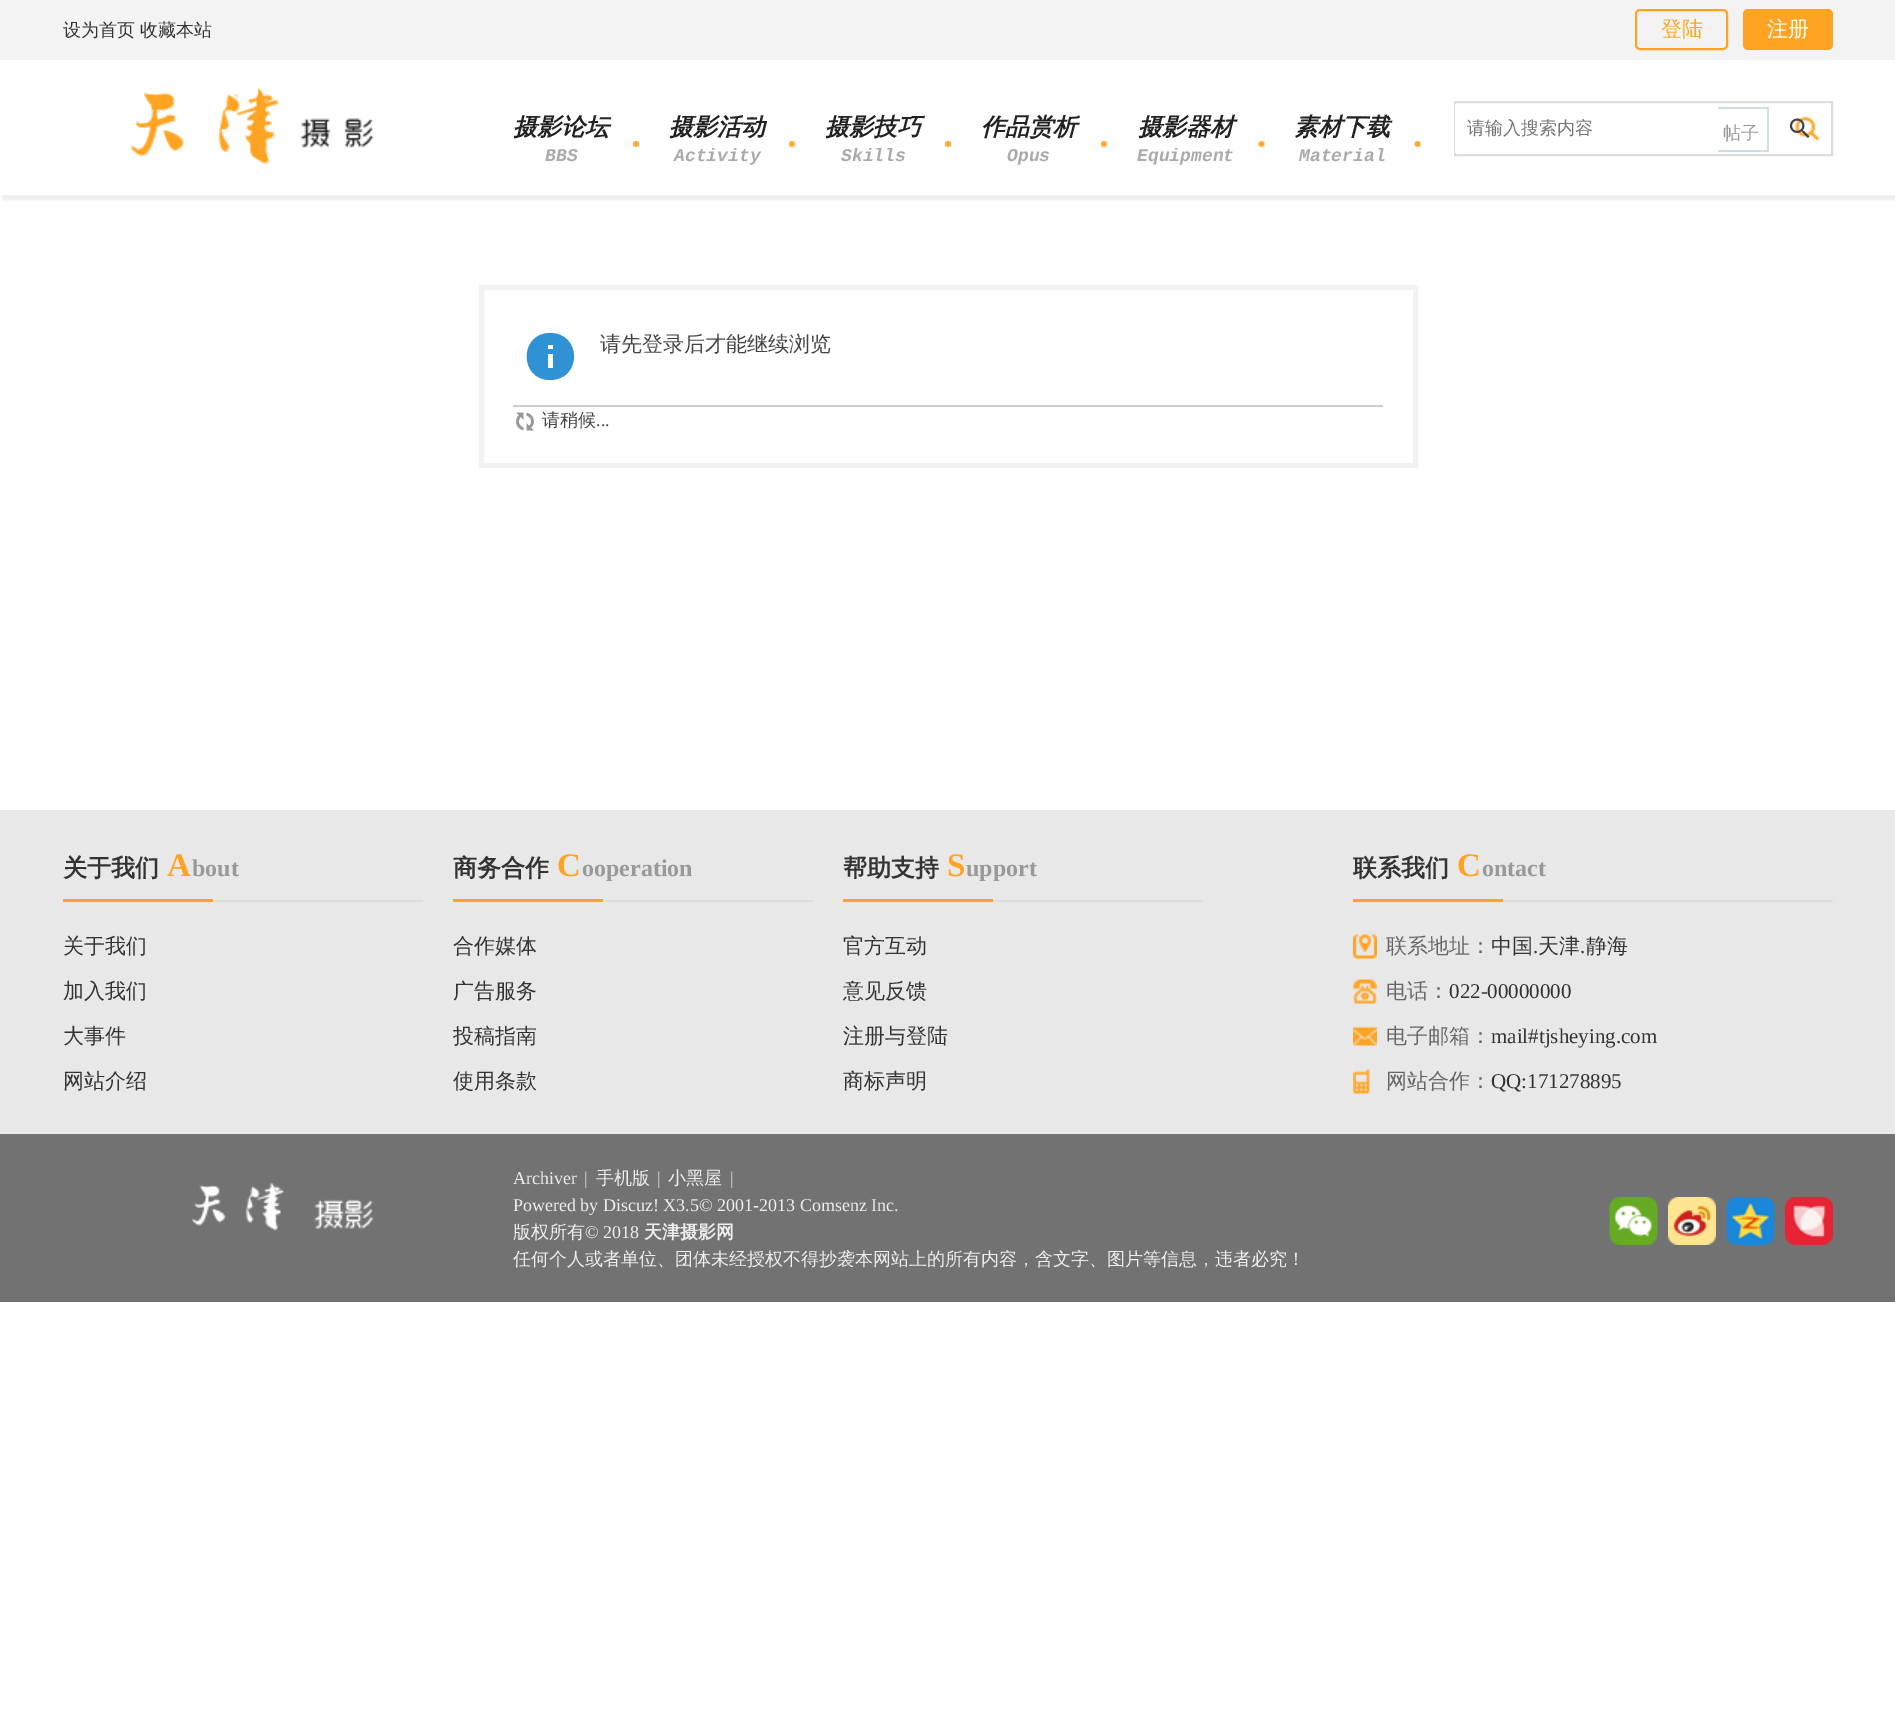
%!PS
<< /PageSize [1895 1730] /PageUsesTransparency true >> setpagedevice
/m/moveto load def
/l/rlineto load def
/c/rcurveto load def
/z/closepath load def
/f/fill load def
/s/stroke load def
/q/gsave load def
/Q_/grestore load def
/w/setlinewidth load def
/C { dup -16 bitshift 255 div exch dup -8 bitshift 255 and 255 div exch 255 and 255 div setrgbcolor } def
/F { [ exch dup neg 0 0 3 -1 roll 0 0 ] selectfont } def
/T { moveto show } def
/R { rectfill } def
/A { dup .setfillconstantalpha .setstrokeconstantalpha } def
/Q { 5 dict begin { /r /h /w /y /x } { exch def } forall
  x r add y moveto x w add y 2 copy h add r arct x w add y h add x 1 index r arct
  x y h add x y r arct x y 2 copy exch w add exch r arct closepath end } def
/S { 12 dict begin { /a /b /q /h /w /y /x } { exch def } forall gsave /was 0 def
  9 -2 -9 { dup b mul 4 div /e exch def 1 sub .425 mul 2.718 exch exp 1 add a .99 .min exch div /now exch def
    1 1 now sub 1 was sub div sub A /was now def
    w h .min e 2 mul add 0 gt { x e sub y e sub w e 2 mul add h e 2 mul add
      q e add b .6 mul add w h .min 2 div e add .min 0 .max Q fill } if } for grestore end } def
/I { 5 dict begin { /h /w /y /x /name } { exch def } forall
  gsave x y translate w h scale
  w h 8 [w 0 0 h 0 0] name (r) file false 3 colorimage grestore end } def
0 .pushpdf14devicefilter
0 1730 translate 1 -1 scale
4 setmiterlimit
16#FFFFFF C
0 0 1895 1730 R
16#F3F3F3 C
0 0 1895 60 R
/WenQuanYiZenHei-Medium 18 F
16#333333 C
(设为首页) 63 36 T
(收藏本站) 140 36 T
16#FFA422 C
2 w
1636 10 91 39 4 Q s
/WenQuanYiZenHei-Medium 21 F
(登陆) 1661 36 T
1743 9 90 41 5 Q f
16#FFFFFF C
(注册) 1767 36 T
q
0 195 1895 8 rectclip
16#EDEDED C
3 65 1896 135 0 1.5 1 S
Q_
(1.rgb) 130 88 244 76 I
(2.rgb) 633 141 6 6 I
/WenQuanYiZenHei-BoldItalic 24 F
16#222222 C
(摄影论坛) 513 135 T
/LiberationMono-BoldItalic 18 F
16#AAAAAA C
(BBS) 545 161 T
(2.rgb) 789 141 6 6 I
/WenQuanYiZenHei-BoldItalic 24 F
16#222222 C
(摄影活动) 669 135 T
/LiberationMono-BoldItalic 18 F
16#AAAAAA C
(Activity) 674 161 T
(2.rgb) 945 141 6 6 I
/WenQuanYiZenHei-BoldItalic 24 F
16#222222 C
(摄影技巧) 825 135 T
/LiberationMono-BoldItalic 18 F
16#AAAAAA C
(Skills) 841 161 T
(3.rgb) 1101 141 6 6 I
/WenQuanYiZenHei-BoldItalic 24 F
16#222222 C
(作品赏析) 981 135 T
/LiberationMono-BoldItalic 18 F
16#AAAAAA C
(Opus) 1007 161 T
(4.rgb) 1258 141 7 6 I
/WenQuanYiZenHei-BoldItalic 24 F
16#222222 C
(摄影器材) 1138 135 T
/LiberationMono-BoldItalic 18 F
16#AAAAAA C
(Equipment) 1137 161 T
(4.rgb) 1414 141 7 6 I
/WenQuanYiZenHei-BoldItalic 24 F
16#222222 C
(素材下载) 1294 135 T
/LiberationMono-BoldItalic 18 F
16#AAAAAA C
(Material) 1299 161 T
16#DDDDDD C
1455 102 377 53 rectstroke
16#CFDEE3 C
1715 107 54 2 R
1767 107 2 45 R
1715 150 54 2 R
16#FFFFFF C
1455 104 263 49 R
/WenQuanYiZenHei-Medium 18 F
16#757575 C
(请输入搜索内容) 1467 134 T
16#999999 C
(帖子) 1723 139 T
(5.rgb) 1795 116 25 26 I
(6.rgb) 1789 118 21 20 I
16#F2F2F2 C
5 w
481.5 287.5 934 178 rectstroke
16#2F92D4 C
550 333 m -31 0 -31 47 0 47 c 32 0 32 -47 0 -47 c z 553 368 m -5 0 l 0 -14 l 5 0 l z 553 349 m -5 0 l 0 -4 l 5 0 l z f
/WenQuanYiZenHei-Medium 21 F
16#444444 C
(请先登录后才能继续浏览) 600 351 T
16#CDCDCD C
513 405 870 2 R
(7.rgb) 516 412 18 19 I
/WenQuanYiZenHei-Medium 18 F
16#444444 C
(请稍候) 542 426 T
/LiberationSerif-Regular 18 F
(...) 596 426 T
16#E8E8E8 C
0 810 1895 324 R
16#DDDDDD C
213 900 210 2 R
/WenQuanYiZenHei-Bold 24 F
16#333333 C
(关于我们) 63 876 T
/LiberationSerif-Bold 33 F
16#FFA422 C
(A) 167 876 T
/LiberationSerif-Bold 24 F
16#999999 C
(bout) 192 876 T
16#FFA422 C
63 899 150 3 R
/WenQuanYiZenHei-Medium 21 F
16#333333 C
(关于我们) 63 953 T
(加入我们) 63 998 T
(大事件) 63 1043 T
(网站介绍) 63 1088 T
16#DDDDDD C
603 900 210 2 R
/WenQuanYiZenHei-Bold 24 F
16#333333 C
(商务合作) 453 876 T
/LiberationSerif-Bold 33 F
16#FFA422 C
(C) 557 876 T
/LiberationSerif-Bold 24 F
16#999999 C
(ooperation) 582 876 T
16#FFA422 C
453 899 150 3 R
/WenQuanYiZenHei-Medium 21 F
16#333333 C
(合作媒体) 453 953 T
(广告服务) 453 998 T
(投稿指南) 453 1043 T
(使用条款) 453 1088 T
16#DDDDDD C
993 900 210 2 R
/WenQuanYiZenHei-Bold 24 F
16#333333 C
(帮助支持) 843 876 T
/LiberationSerif-Bold 33 F
16#FFA422 C
(S) 947 876 T
/LiberationSerif-Bold 24 F
16#999999 C
(upport) 966 876 T
16#FFA422 C
843 899 150 3 R
/WenQuanYiZenHei-Medium 21 F
16#333333 C
(官方互动) 843 953 T
(意见反馈) 843 998 T
(注册与登陆) 843 1043 T
(商标声明) 843 1088 T
16#DDDDDD C
1503 900 330 2 R
/WenQuanYiZenHei-Bold 24 F
16#333333 C
(联系我们) 1353 876 T
/LiberationSerif-Bold 33 F
16#FFA422 C
(C) 1457 876 T
/LiberationSerif-Bold 24 F
16#999999 C
(ontact) 1482 876 T
16#FFA422 C
1353 899 150 3 R
(8.rgb) 1353 934 24 25 I
/WenQuanYiZenHei-Medium 21 F
16#666666 C
(联系地址：) 1386 953 T
16#333333 C
(中国) 1491 953 T
/LiberationSerif-Regular 21 F
(.) 1533 953 T
/WenQuanYiZenHei-Medium 21 F
(天津) 1538 953 T
/LiberationSerif-Regular 21 F
(.) 1580 953 T
/WenQuanYiZenHei-Medium 21 F
(静海) 1586 953 T
(9.rgb) 1353 979 24 25 I
16#666666 C
(电话：) 1386 998 T
/LiberationSerif-Regular 21 F
16#333333 C
(022-00000000) 1449 998 T
(10.rgb) 1353 1027 24 19 I
/WenQuanYiZenHei-Medium 21 F
16#666666 C
(电子邮箱：) 1386 1043 T
/LiberationSerif-Regular 21 F
16#333333 C
(mail#tjsheying.com) 1491 1043 T
(11.rgb) 1353 1069 17 25 I
/WenQuanYiZenHei-Medium 21 F
16#666666 C
(网站合作：) 1386 1088 T
/LiberationSerif-Regular 21 F
16#333333 C
(QQ:171278895) 1491 1088 T
16#727272 C
0 1134 1895 168 R
(12.rgb) 191 1182 183 49 I
/LiberationSerif-Regular 18 F
16#EEEEEE C
(Archiver) 513 1184 T
16#CCCCCC C
(|) 584 1184 T
/WenQuanYiZenHei-Medium 18 F
16#EEEEEE C
(手机版) 596 1184 T
/LiberationSerif-Regular 18 F
16#CCCCCC C
(|) 657 1184 T
/WenQuanYiZenHei-Medium 18 F
16#EEEEEE C
(小黑屋) 668 1184 T
/LiberationSerif-Regular 18 F
16#CCCCCC C
(|) 730 1184 T
16#EEEEEE C
(Powered by Discuz! X3.5© 2001-2013 Comsenz Inc.) 513 1211 T
/WenQuanYiZenHei-Medium 18 F
(版权所有) 513 1238 T
/LiberationSerif-Regular 18 F
(© 2018) 585 1238 T
/WenQuanYiZenHei-Bold 18 F
(天津摄影网) 644 1238 T
/WenQuanYiZenHei-Medium 18 F
(任何个人或者单位、团体未经授权不得抄袭本网站上的所有内容，含文字、图片等信息，违者必究！) 513 1265 T
(13.rgb) 1609 1197 49 48 I
(14.rgb) 1668 1197 48 48 I
(15.rgb) 1726 1197 49 48 I
(16.rgb) 1785 1197 48 48 I
.poppdf14devicefilter showpage
